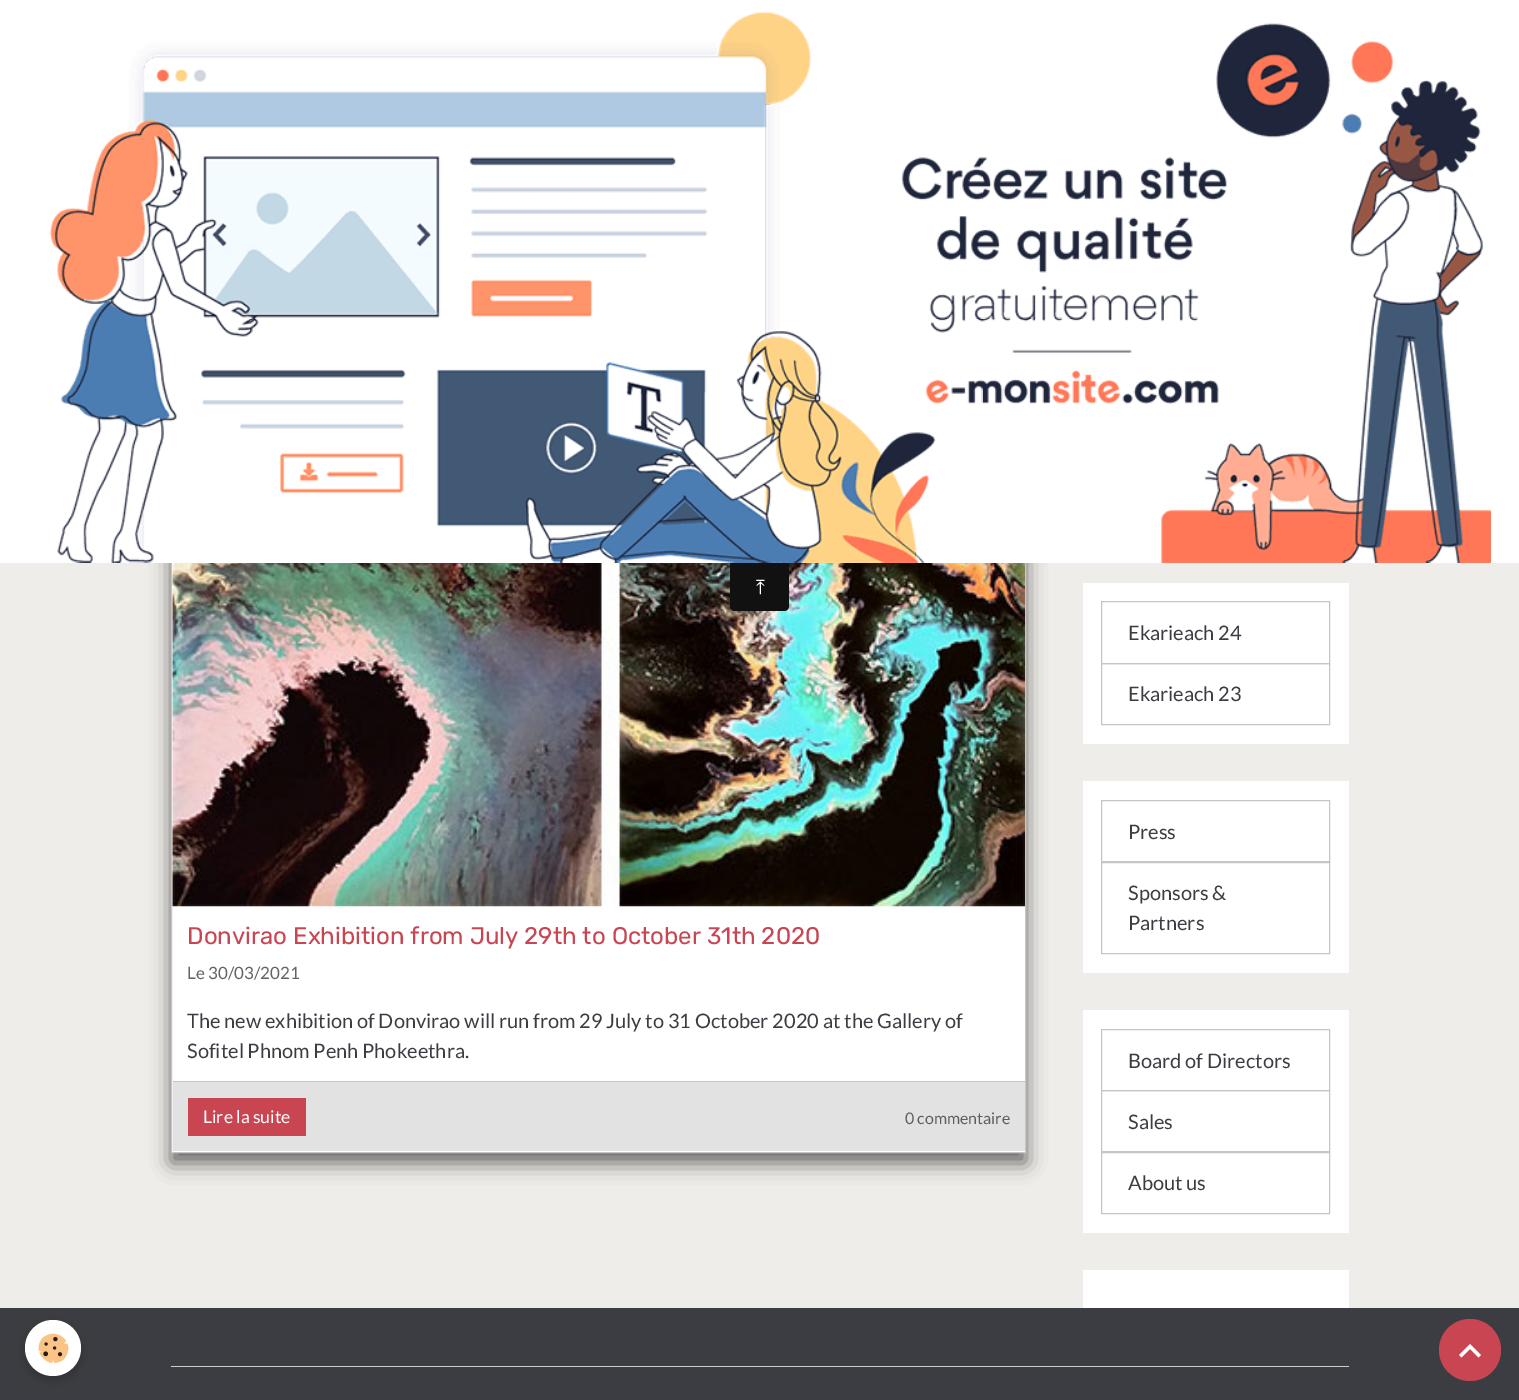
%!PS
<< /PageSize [1519 1400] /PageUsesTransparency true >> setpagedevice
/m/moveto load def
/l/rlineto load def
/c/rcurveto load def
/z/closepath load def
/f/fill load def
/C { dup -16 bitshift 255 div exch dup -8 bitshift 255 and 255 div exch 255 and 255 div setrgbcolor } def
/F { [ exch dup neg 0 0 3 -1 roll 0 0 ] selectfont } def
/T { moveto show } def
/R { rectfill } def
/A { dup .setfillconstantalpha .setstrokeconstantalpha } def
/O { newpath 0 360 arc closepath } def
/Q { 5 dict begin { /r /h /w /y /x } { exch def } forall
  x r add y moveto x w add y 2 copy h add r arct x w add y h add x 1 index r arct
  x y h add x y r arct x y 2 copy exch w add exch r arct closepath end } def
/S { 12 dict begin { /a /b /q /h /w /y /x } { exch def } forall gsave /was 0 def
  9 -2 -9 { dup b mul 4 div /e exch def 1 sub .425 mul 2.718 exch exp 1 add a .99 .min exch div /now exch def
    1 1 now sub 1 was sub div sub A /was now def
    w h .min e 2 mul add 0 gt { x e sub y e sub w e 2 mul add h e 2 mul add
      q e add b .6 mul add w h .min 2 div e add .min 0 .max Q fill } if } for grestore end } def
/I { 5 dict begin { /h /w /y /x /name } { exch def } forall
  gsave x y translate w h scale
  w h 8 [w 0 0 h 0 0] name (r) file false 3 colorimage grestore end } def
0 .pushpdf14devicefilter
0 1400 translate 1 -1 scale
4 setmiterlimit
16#EFEDEA C
0 0 1519 1400 R
16#666262 C
171 371 855 792 0 10 1 S
16#FFFFFF C
172 563 853 589 R
16#C4C5C6 C
171.5 361.5 854 791 rectstroke
16#FFFFFF C
0 0 1519 563 R
(1.rgb) 50 12 1441 551 I
(2.rgb) 172 563 853 344 I
16#111111 C
730 563 m 59 0 l 0 43 l 0 3 -2 5 -5 5 c -49 0 l -3 0 -5 -2 -5 -5 c z f
/FreeSerif-Regular 20 F
16#FFFFFF C
(⤒) 756 594 T
/Rubik-Regular 24 F
16#C84551 C
(Donvirao Exhibition from July 29th to October 31th 2020) 187 944 T
/Lato-Regular 17 F
16#626468 C
(Le 30/03/2021) 187 979 T
/Lato-Regular 20 F
16#3B3D42 C
(The new exhibition of Donvirao will run from 29 July to 31 October 2020 at the Gallery of) 187 1028 T
(Sofitel Phnom Penh Phokeethra.) 187 1058 T
16#E2E2E3 C
173 1082 852 69 R
16#C4C5C6 C
173 1081 852 1 R
16#C84551 C
188 1098 118 38 R
/Lato-Regular 17.5 F
16#FFFFFF C
(Lire la suite) 203 1123 T
/Lato-Regular 16 F
16#5C5E62 C
(0 commentaire) 905 1124 T
16#FFFFFF C
1083 583 266 161 R
16#C4C5C6 C
1101.5 601.5 228 62 rectstroke
/Lato-Regular 20 F
16#3B3D42 C
(Ekarieach 24) 1128 640 T
16#C4C5C6 C
1101.5 663.5 228 61 rectstroke
16#3B3D42 C
(Ekarieach 23) 1128 701 T
16#FFFFFF C
1083 781 266 192 R
16#C4C5C6 C
1101.5 800.5 228 62 rectstroke
16#3B3D42 C
(Press) 1128 839 T
16#C4C5C6 C
1101.5 861.5 228 92 rectstroke
16#3B3D42 C
(Sponsors &) 1128 900 T
(Partners) 1128 930 T
16#FFFFFF C
1083 1010 266 223 R
16#C4C5C6 C
1101.5 1029.5 228 61 rectstroke
16#3B3D42 C
(Board of Directors) 1128 1068 T
16#C4C5C6 C
1101.5 1090.5 228 62 rectstroke
16#3B3D42 C
(Sales) 1128 1129 T
16#C4C5C6 C
1101.5 1151.5 228 62 rectstroke
16#3B3D42 C
(About us) 1128 1190 T
16#FFFFFF C
1083 1270 266 38 R
16#3B3D42 C
0 1308 1519 92 R
16#000000 C
25 1324 56 56 28 6 .24 S
16#FFFFFF C
53 1348 28 O f
(3.rgb) 38 1333 31 30 I
16#CCCCCC C
171 1366 1178 1 R
16#C84551 C
1470 1350 31 O f
16#FFFFFF C
1470 1344 m 11 11 l -2.5 2.5 l -8.5 -8.5 l -8.5 8.5 l -2.5 -2.5 l z f
.poppdf14devicefilter showpage
